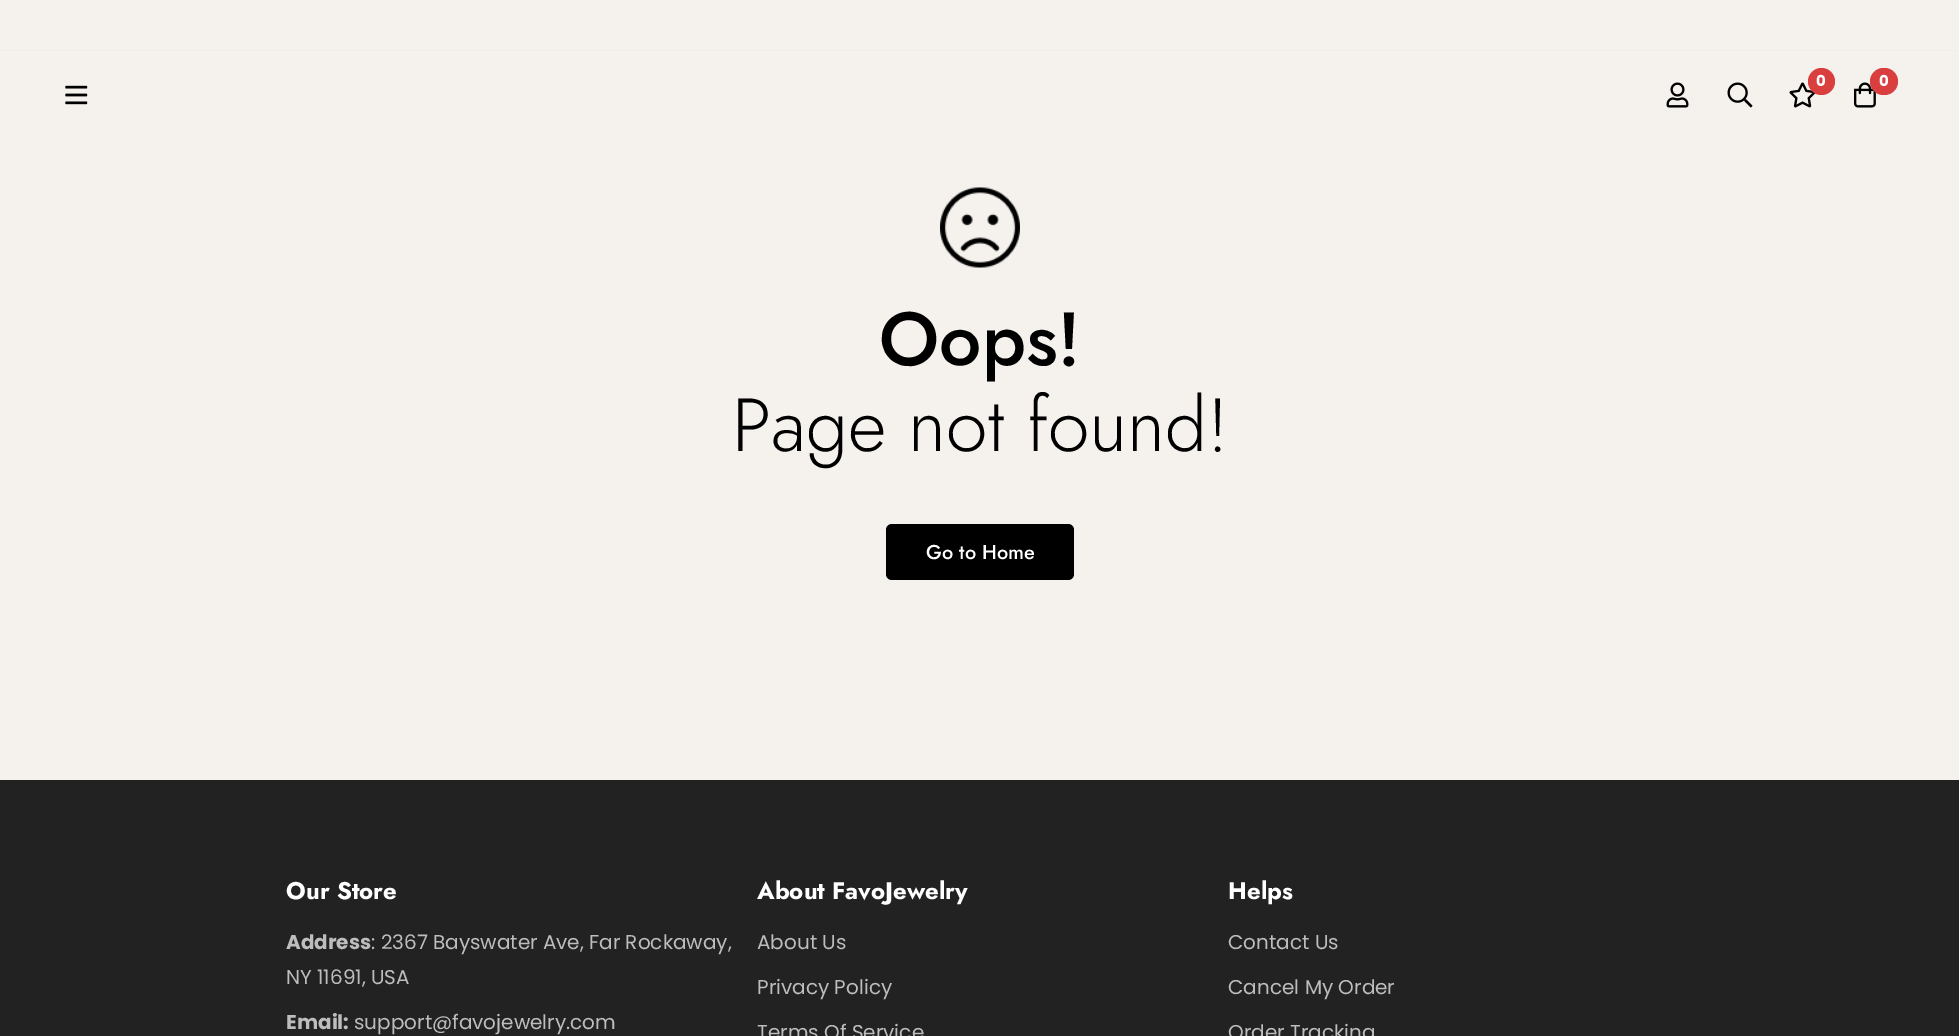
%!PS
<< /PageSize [1959 1036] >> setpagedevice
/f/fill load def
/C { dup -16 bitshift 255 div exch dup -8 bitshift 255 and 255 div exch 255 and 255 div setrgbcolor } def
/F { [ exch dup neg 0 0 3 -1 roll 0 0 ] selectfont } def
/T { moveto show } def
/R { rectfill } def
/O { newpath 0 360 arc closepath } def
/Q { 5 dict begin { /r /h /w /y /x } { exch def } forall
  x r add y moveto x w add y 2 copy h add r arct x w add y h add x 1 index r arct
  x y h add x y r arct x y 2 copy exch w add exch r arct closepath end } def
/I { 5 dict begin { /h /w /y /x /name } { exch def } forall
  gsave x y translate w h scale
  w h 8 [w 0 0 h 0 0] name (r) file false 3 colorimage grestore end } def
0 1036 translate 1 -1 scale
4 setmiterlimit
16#F5F1ED C
0 0 1959 1036 R
16#EEEEEE C
0 50 1959 1 R
(1.rgb) 1789 82 27 26 I
16#DA3F3F C
1821.5 81.5 13.5 O f
/Poppins-Bold 15 F
16#FFFFFF C
(0) 1816 86 T
(2.rgb) 1854 82 22 26 I
16#DA3F3F C
1870 68 28 27 13.5 Q f
16#FFFFFF C
(0) 1879 86 T
(3.rgb) 1666 82 23 26 I
(4.rgb) 1727 82 26 26 I
(5.rgb) 65 85 23 20 I
(6.rgb) 940 187 80 81 I
/Jost-Medium 75 F
16#000000 C
(Oops!) 879 365 T
/Jost-Light 75 F
(Page not found!) 732 451 T
886 524 188 56 6 Q f
/Jost-Medium 20 F
16#FFFFFF C
(Go to Home) 926 559 T
16#222222 C
0 780 1959 256 R
/Jost-Bold 24 F
16#FFFFFF C
(Our Store) 286 899 T
/Poppins-Bold 20 F
16#BDBDBD C
(Address) 286 949 T
/Poppins-Regular 20 F
(: 2367 Bayswater Ave, Far Rockaway,) 371 949 T
(NY 11691, USA) 286 984 T
/Poppins-Bold 20 F
(Email:) 286 1029 T
/Poppins-Regular 20 F
(support@favojewelry.com) 354 1029 T
/Jost-Bold 24 F
16#FFFFFF C
(About FavoJewelry) 757 899 T
/Poppins-Regular 20 F
16#BDBDBD C
(About Us) 757 949 T
(Privacy Policy) 757 994 T
(Terms Of Service) 757 1039 T
/Jost-Bold 24 F
16#FFFFFF C
(Helps) 1228 899 T
/Poppins-Regular 20 F
16#BDBDBD C
(Contact Us) 1228 949 T
(Cancel My Order) 1228 994 T
(Order Tracking) 1228 1039 T
showpage
